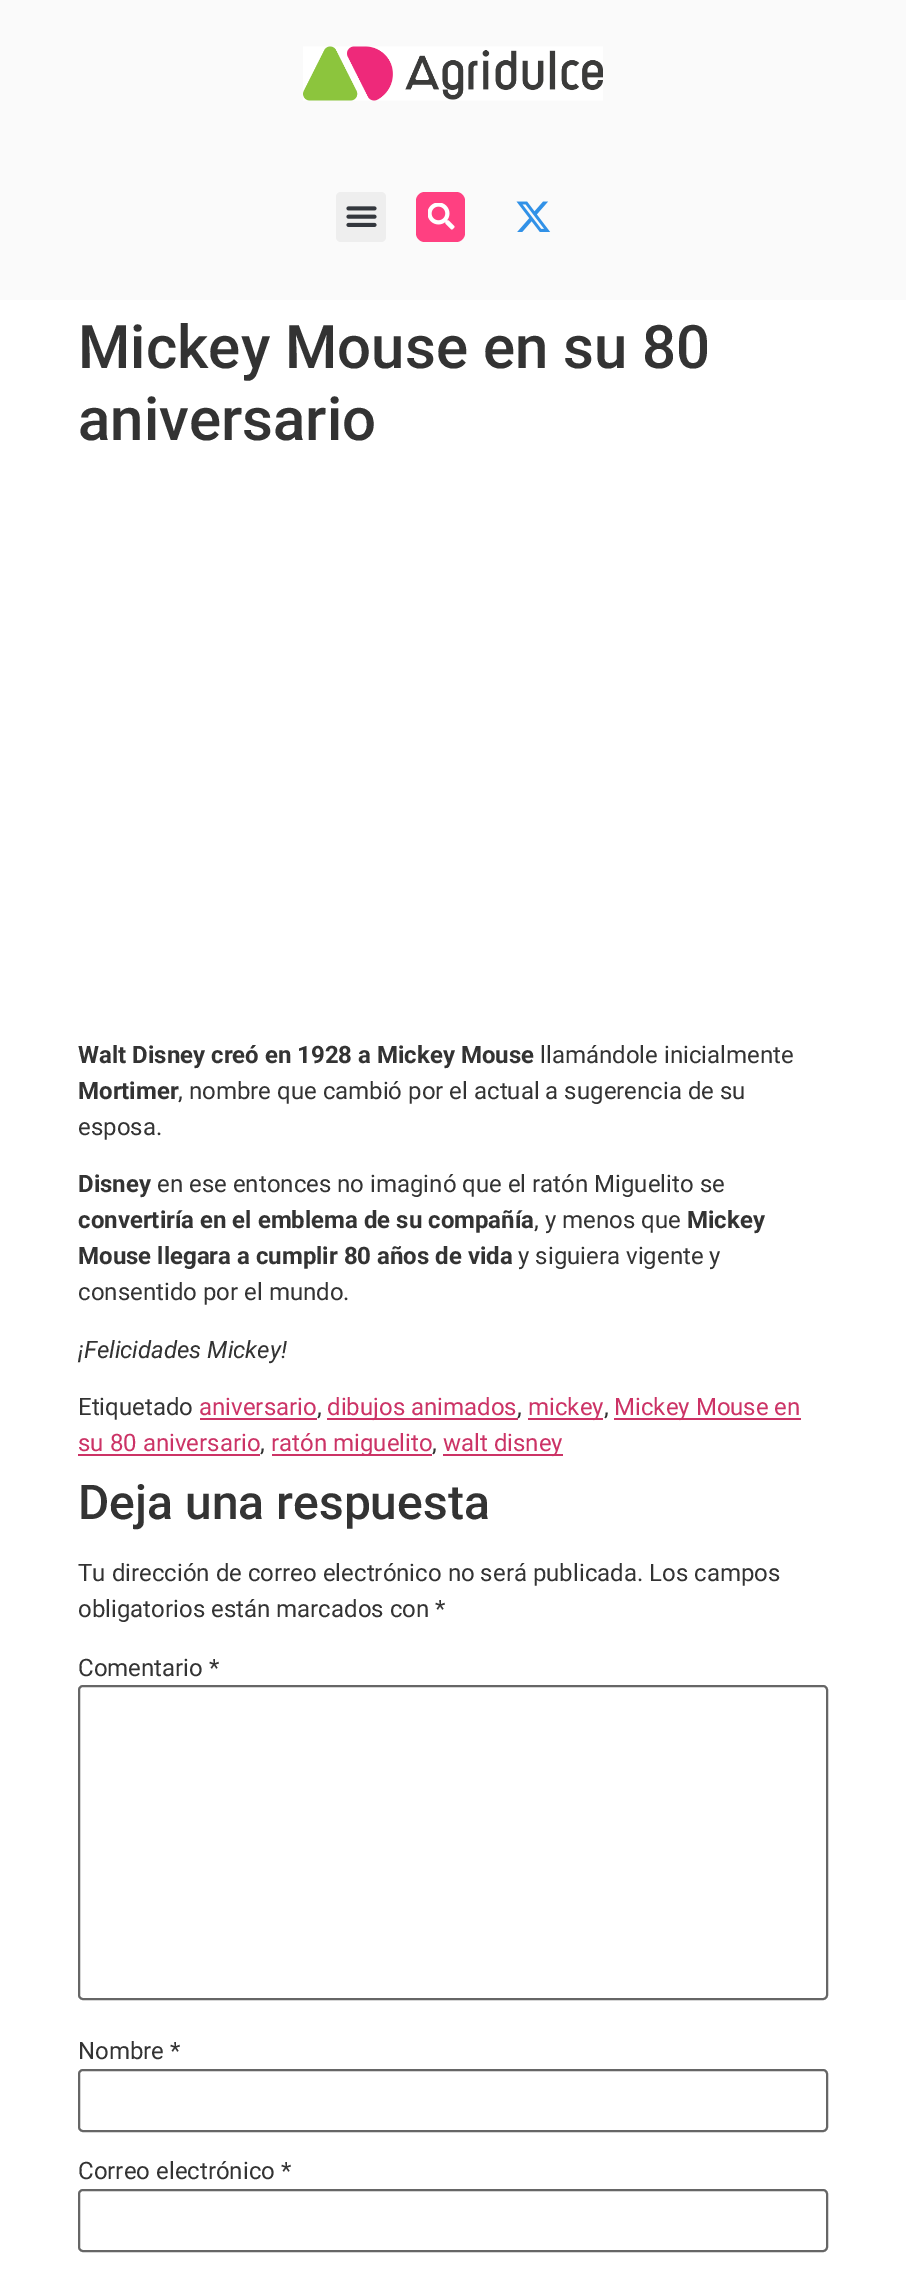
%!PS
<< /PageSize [906 2277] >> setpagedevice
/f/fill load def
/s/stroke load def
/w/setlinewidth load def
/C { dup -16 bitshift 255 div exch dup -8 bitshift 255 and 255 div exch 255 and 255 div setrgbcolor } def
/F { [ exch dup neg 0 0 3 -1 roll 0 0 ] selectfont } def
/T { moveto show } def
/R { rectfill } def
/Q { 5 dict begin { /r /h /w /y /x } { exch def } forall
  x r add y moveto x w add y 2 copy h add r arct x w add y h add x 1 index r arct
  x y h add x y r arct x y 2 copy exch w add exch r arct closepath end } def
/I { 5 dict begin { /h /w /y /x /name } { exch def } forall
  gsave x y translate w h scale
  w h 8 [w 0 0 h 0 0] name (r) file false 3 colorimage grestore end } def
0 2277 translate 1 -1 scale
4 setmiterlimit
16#FFFFFF C
0 0 906 2277 R
16#FAFAFA C
0 0 906 300 R
(1.rgb) 303 46 300 55 I
16#EEEEEE C
336 192 50 50 5 Q f
(2.rgb) 346 206 31 21 I
16#FF4081 C
416 192 49 50 9 Q f
(3.rgb) 428 203 27 27 I
(4.rgb) 516 201 35 31 I
/Roboto-Medium 60 F
16#333333 C
(Mickey Mouse en su 80) 78 368 T
(aniversario) 78 440 T
/Roboto-Bold 24 F
(Walt Disney creó en 1928 a Mickey Mouse) 78 1063 T
/Roboto-Regular 24 F
(llamándole inicialmente) 540 1063 T
/Roboto-Bold 24 F
(Mortimer) 78 1099 T
/Roboto-Regular 24 F
(, nombre que cambió por el actual a sugerencia de su) 178 1099 T
(esposa.) 78 1135 T
/Roboto-Bold 24 F
(Disney) 78 1192 T
/Roboto-Regular 24 F
(en ese entonces no imaginó que el ratón Miguelito se) 157 1192 T
/Roboto-Bold 24 F
(convertiría en el emblema de su compañía) 78 1228 T
/Roboto-Regular 24 F
(, y menos que) 534 1228 T
/Roboto-Bold 24 F
(Mickey) 687 1228 T
(Mouse llegara a cumplir 80 años de vida) 78 1264 T
/Roboto-Regular 24 F
(y siguiera vigente y) 518 1264 T
(consentido por el mundo.) 78 1300 T
/Roboto-Italic 24 F
(¡Felicidades Mickey!) 78 1358 T
/Roboto-Regular 24 F
(Etiquetado) 78 1415 T
16#CC3366 C
(aniversario) 199 1415 T
16#333333 C
(,) 317 1415 T
16#CC3366 C
200 1418 117 2 R
327 1418 191 2 R
(dibujos animados) 327 1415 T
16#333333 C
(,) 517 1415 T
16#CC3366 C
528 1418 75 2 R
(mickey) 528 1415 T
16#333333 C
(,) 604 1415 T
16#CC3366 C
614 1418 187 2 R
(Mickey Mouse en) 614 1415 T
(su 80 aniversario) 78 1451 T
16#333333 C
(,) 260 1451 T
16#CC3366 C
78 1454 182 2 R
272 1454 160 2 R
(ratón miguelito) 271 1451 T
16#333333 C
(,) 432 1451 T
16#CC3366 C
443 1454 120 2 R
(walt disney) 443 1451 T
/Roboto-Medium 48 F
16#333333 C
(Deja una respuesta) 78 1519 T
/Roboto-Regular 24 F
(Tu dirección de correo electrónico no será publicada. Los campos) 78 1581 T
(obligatorios están marcados con *) 78 1617 T
(Comentario *) 78 1676 T
16#666666 C
2 w
79 1686 748 313 4 Q s
16#333333 C
(Nombre *) 78 2059 T
16#666666 C
79 2070 748 61 4 Q s
16#333333 C
(Correo electrónico *) 78 2179 T
16#666666 C
79 2190 748 61 4 Q s
showpage
